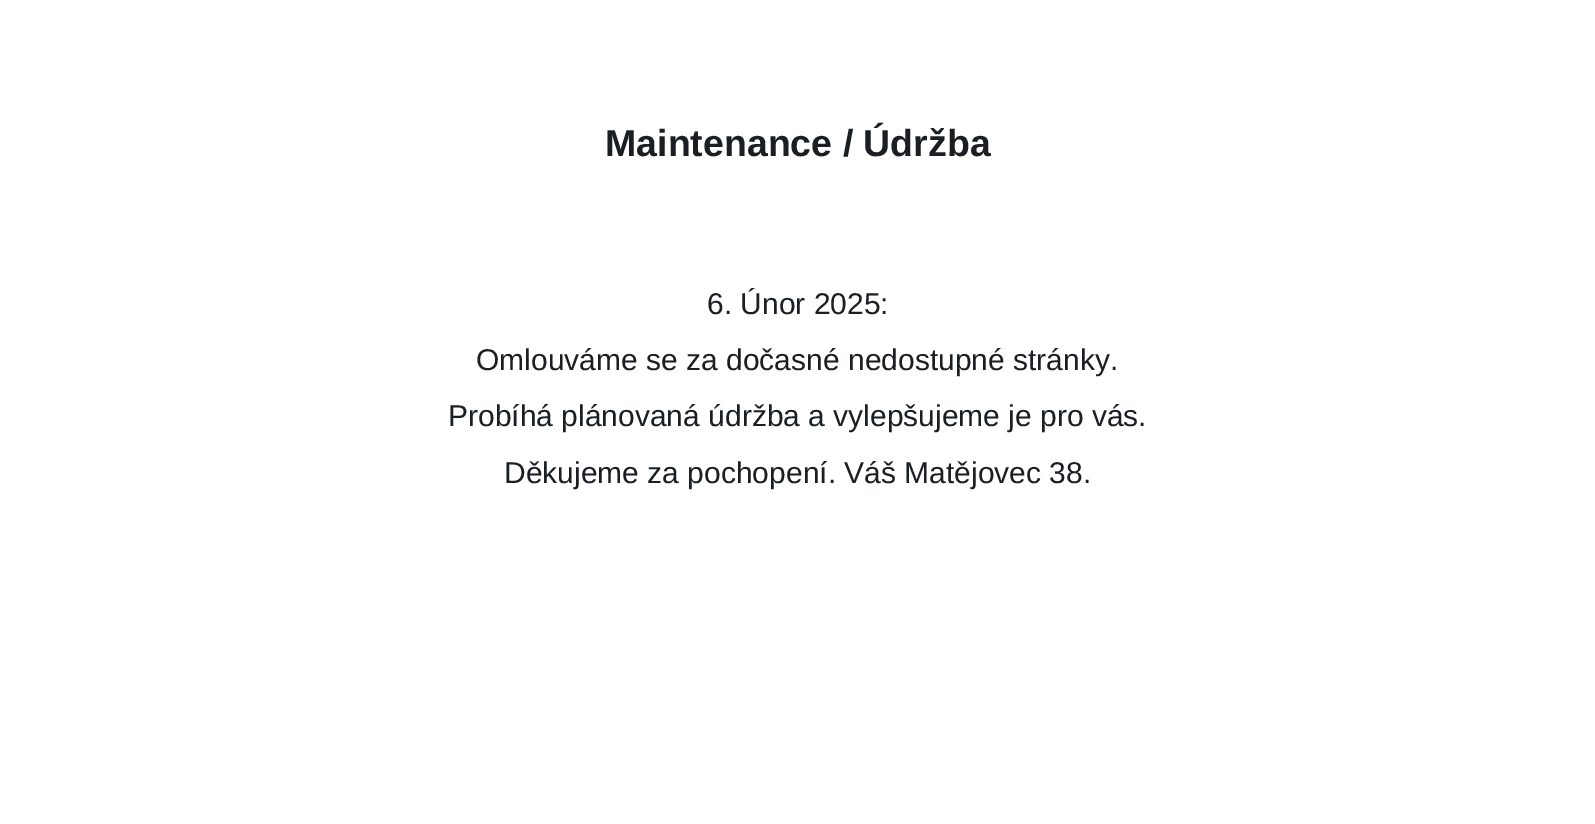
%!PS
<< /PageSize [1595 824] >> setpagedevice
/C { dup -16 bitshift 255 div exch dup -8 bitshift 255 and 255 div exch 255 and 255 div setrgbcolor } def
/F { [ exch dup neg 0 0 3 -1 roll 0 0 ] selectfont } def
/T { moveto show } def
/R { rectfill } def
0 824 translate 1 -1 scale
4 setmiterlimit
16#FFFFFF C
0 0 1595 824 R
/LiberationSans-Bold 37.5 F
16#1B1F23 C
(Maintenance / Údržba) 605 156 T
/LiberationSans-Regular 30 F
(6. Únor 2025:) 707 314 T
(Omlouváme se za dočasné nedostupné stránky.) 476 370 T
(Probíhá plánovaná údržba a vylepšujeme je pro vás.) 448 426 T
(Děkujeme za pochopení. Váš Matějovec 38.) 504 483 T
showpage
